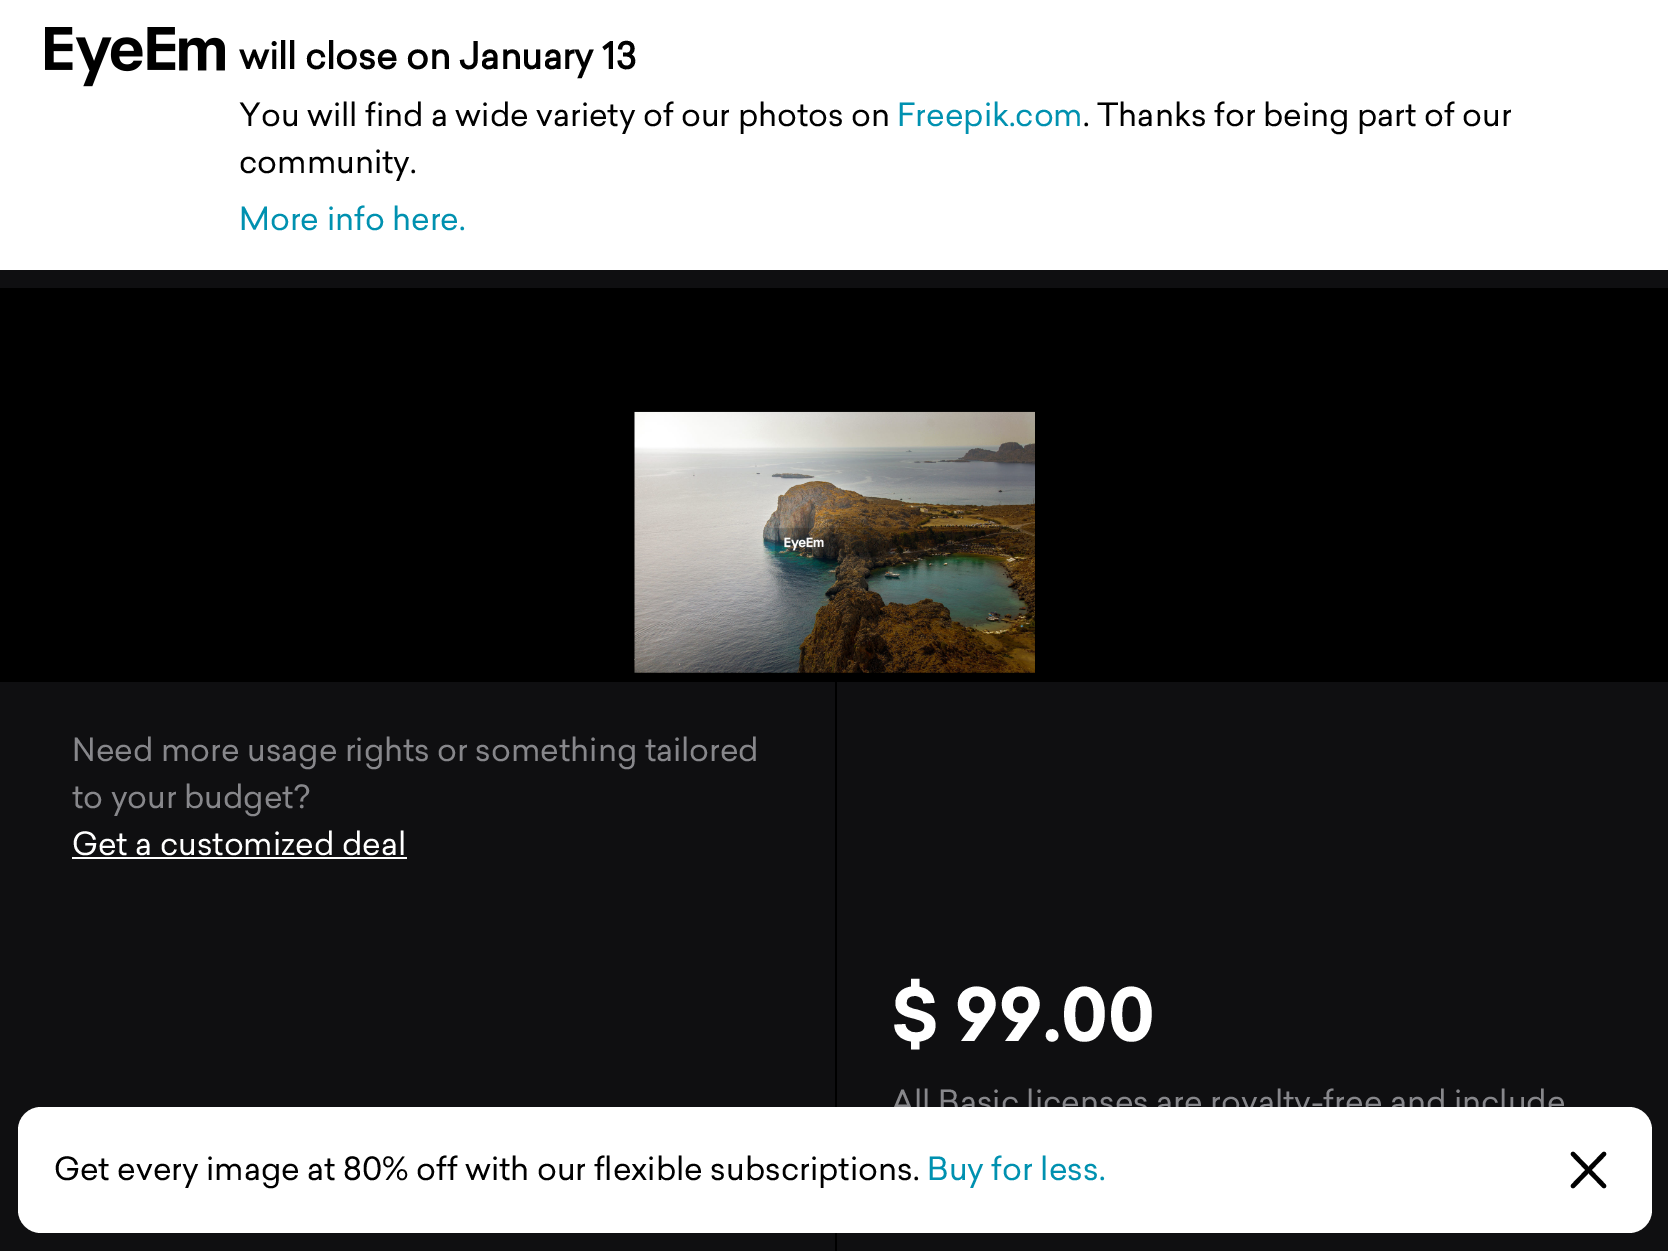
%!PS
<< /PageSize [1668 1251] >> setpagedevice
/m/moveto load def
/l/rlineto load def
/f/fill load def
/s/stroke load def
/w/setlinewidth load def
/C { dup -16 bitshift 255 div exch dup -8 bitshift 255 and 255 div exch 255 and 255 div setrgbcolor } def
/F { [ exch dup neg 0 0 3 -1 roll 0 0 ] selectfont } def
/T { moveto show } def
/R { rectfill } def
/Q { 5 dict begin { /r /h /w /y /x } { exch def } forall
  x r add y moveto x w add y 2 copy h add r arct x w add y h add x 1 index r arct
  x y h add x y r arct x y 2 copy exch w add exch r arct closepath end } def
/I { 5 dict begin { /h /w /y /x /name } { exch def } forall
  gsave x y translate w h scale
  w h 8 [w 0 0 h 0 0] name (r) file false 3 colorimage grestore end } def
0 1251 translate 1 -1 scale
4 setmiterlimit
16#000000 C
0 0 1668 1251 R
16#FFFFFF C
0 0 1668 270 R
(1.rgb) 45 27 180 60 I
/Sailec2-Bold 36 F
16#000000 C
(will close on January 13) 239 69 T
/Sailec-Regular 31.5 F
(You will find a wide variety of our photos on) 239 126 T
16#0091B0 C
(Freepik.com) 897 126 T
16#000000 C
(. Thanks for being part of our) 1083 126 T
(community.) 239 173 T
16#0091B0 C
(More info here.) 239 230 T
16#0F0F11 C
0 270 1668 18 R
(2.rgb) 634 411 401 262 I
0 682 835 569 R
16#87878B C
(Need more usage rights or something tailored) 72 761 T
(to your budget?) 72 808 T
16#FFFFFF C
(Get a customized deal) 72 855 T
72 857 335 2 R
16#0F0F11 C
837 682 831 569 R
/Sailec-Bold 72 F
16#FFFFFF C
($ 99.00) 891 1041 T
/Sailec-Regular 31.5 F
16#87878B C
(All Basic licenses are royalty-free and include) 891 1113 T
16#FFFFFF C
18 1107 1634 126 23 Q f
16#000000 C
(Get every image at 80% off with our flexible subscriptions.) 54 1180 T
16#0091B0 C
(Buy for less.) 927 1180 T
16#000000 C
4.5 w
1 setlinecap
1 setlinejoin
1604 1154 m -31 32 l 1573 1154 m 31 32 l s
showpage
